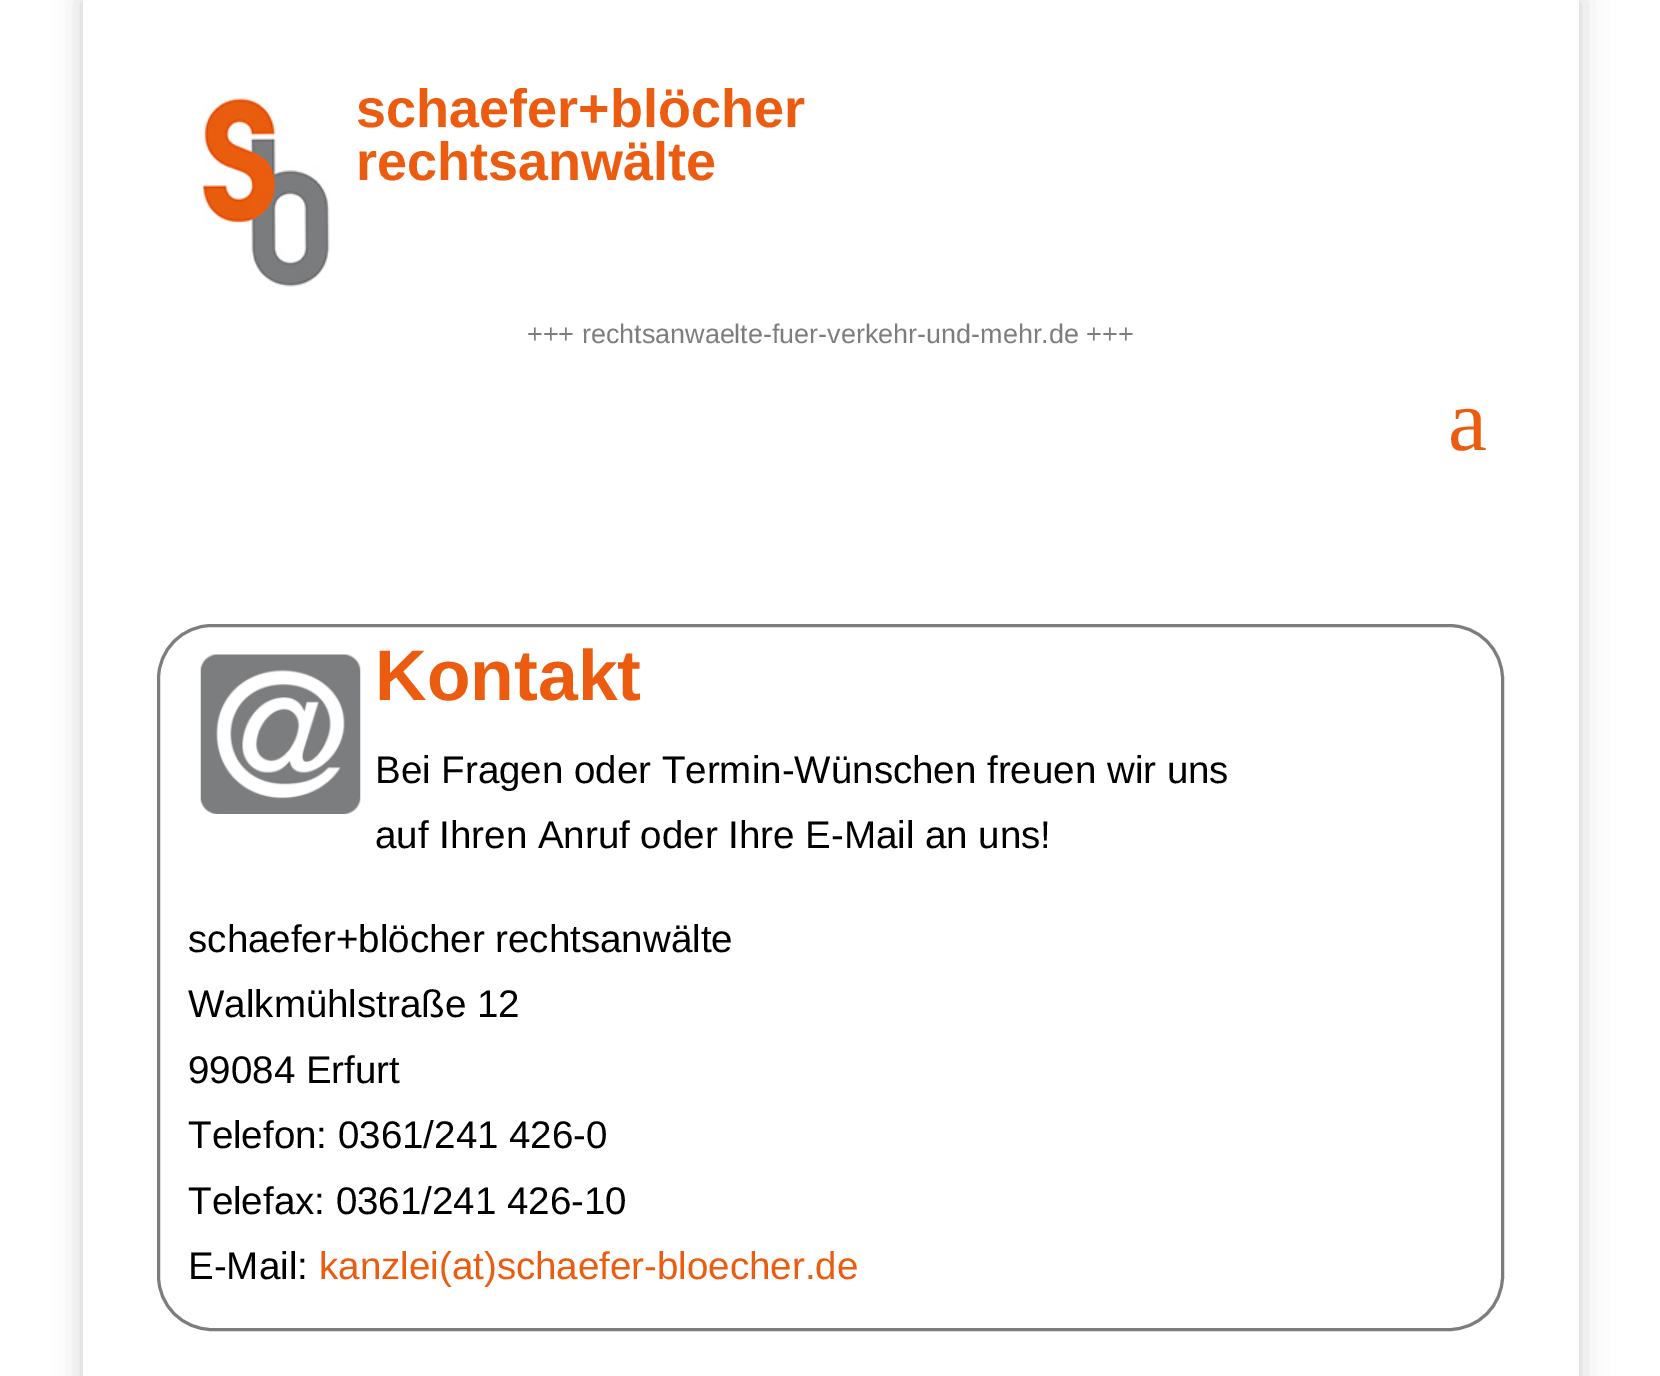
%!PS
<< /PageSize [1660 1376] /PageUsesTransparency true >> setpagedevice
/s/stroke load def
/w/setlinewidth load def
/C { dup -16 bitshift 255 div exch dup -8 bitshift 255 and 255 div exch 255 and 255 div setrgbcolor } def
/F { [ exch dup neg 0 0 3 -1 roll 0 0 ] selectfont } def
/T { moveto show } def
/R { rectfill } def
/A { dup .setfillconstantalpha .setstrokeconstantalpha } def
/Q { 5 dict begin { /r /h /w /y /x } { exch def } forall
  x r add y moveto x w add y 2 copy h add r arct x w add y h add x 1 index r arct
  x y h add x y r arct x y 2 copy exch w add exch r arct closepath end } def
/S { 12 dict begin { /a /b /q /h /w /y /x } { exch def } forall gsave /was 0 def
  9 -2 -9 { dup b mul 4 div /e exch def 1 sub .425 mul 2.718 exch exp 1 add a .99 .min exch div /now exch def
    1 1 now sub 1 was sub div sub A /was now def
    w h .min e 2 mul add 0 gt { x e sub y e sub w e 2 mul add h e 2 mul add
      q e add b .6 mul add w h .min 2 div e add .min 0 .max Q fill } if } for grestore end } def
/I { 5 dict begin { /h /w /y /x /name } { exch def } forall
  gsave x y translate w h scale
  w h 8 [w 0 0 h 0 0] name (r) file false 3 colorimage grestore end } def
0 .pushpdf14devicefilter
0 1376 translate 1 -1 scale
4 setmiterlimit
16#FFFFFF C
0 0 1660 1376 R
16#000000 C
83 0 1496 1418 0 14 .2 S
16#FFFFFF C
83 0 1496 1376 R
(1.rgb) 201 98 129 189 I
/LiberationSans-Bold 54 F
16#EB5C10 C
(schaefer+blöcher) 356 127 T
(rechtsanwälte) 356 180 T
/LiberationSans-Regular 26.95 F
16#7C7D7F C
(+++ rechtsanwaelte-fuer-verkehr-und-mehr.de +++) 527 343 T
/LiberationSerif-Regular 88 F
16#EB5C10 C
(a) 1448 450 T
16#7C7D7F C
3 w
158.5 625.5 1344 704 53.5 Q s
(2.rgb) 200 654 161 160 I
/LiberationSans-Bold 71.5 F
16#EB5C10 C
(Kontakt) 375 700 T
/LiberationSans-Regular 38.5 F
16#000000 C
(Bei Fragen oder Termin-Wünschen freuen wir uns) 375 783 T
(auf Ihren Anruf oder Ihre E-Mail an uns!) 375 848 T
(schaefer+blöcher rechtsanwälte) 188 952 T
(Walkmühlstraße 12) 188 1017 T
(99084 Erfurt) 188 1083 T
(Telefon: 0361/241 426-0) 188 1148 T
(Telefax: 0361/241 426-10) 188 1214 T
(E-Mail:) 188 1279 T
16#EB5C10 C
(kanzlei\(at\)schaefer-bloecher.de) 319 1279 T
.poppdf14devicefilter showpage
